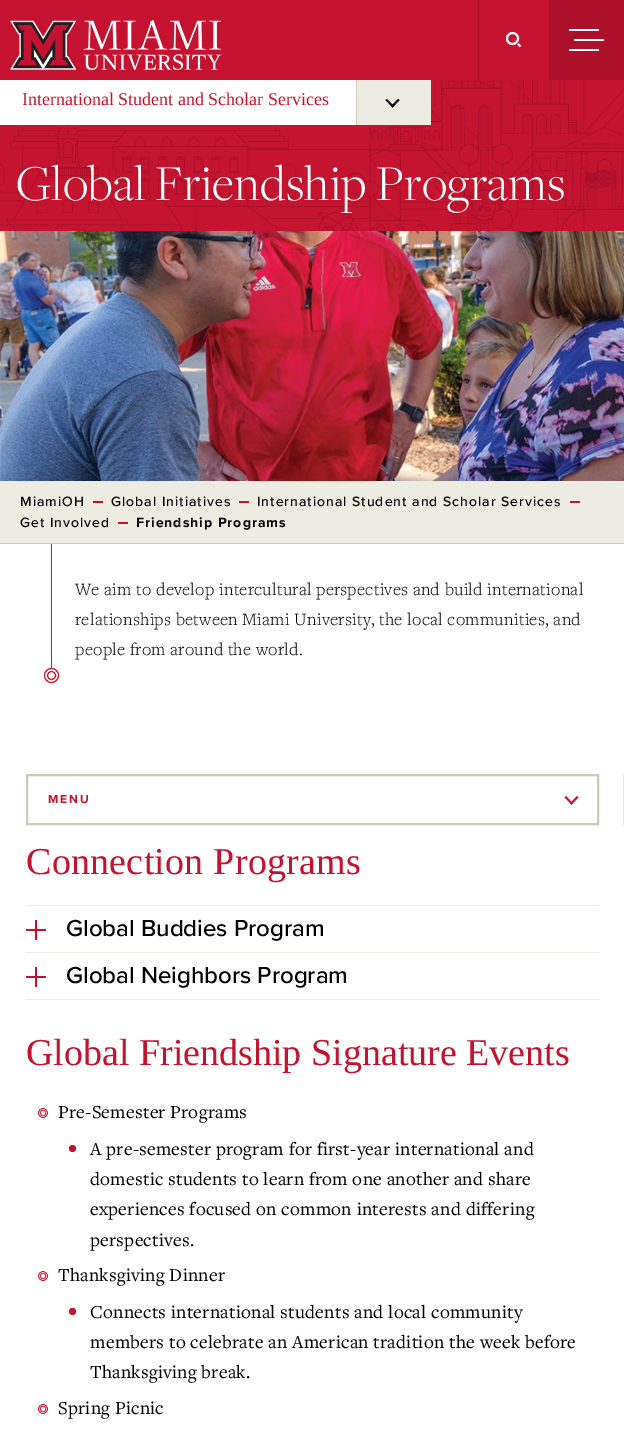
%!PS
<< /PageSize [624 1435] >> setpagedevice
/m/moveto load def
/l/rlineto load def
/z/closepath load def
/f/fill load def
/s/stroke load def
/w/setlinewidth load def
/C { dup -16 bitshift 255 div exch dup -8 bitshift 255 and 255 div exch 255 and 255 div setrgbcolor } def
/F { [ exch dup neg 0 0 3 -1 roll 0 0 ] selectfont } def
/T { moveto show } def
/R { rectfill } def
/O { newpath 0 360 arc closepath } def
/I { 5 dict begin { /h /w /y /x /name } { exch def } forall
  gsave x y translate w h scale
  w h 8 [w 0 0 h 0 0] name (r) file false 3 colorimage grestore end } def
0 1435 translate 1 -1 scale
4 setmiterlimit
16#FFFFFF C
0 0 624 1435 R
(2.rgb) 0 80 624 151 I
16#CCC9B8 C
356 78 1 47 R
16#C41230 C
0 0 549 80 R
(1.rgb) 10 20 212 50 I
16#AD102A C
478 0 1 80 R
16#FFFFFF C
2 w
512.5 38.5 5.5 O s
520.5 46.5 m -2.5 -2.5 l s
16#AD102A C
549 0 75 80 R
16#FFFFFF C
569 29 30 2 R
569 49 30 2 R
574 39 30 2 R
0 80 356 45 R
16#C41230 C
0 125 431 2 R
/LiberationSerif-Regular 18 F
(International Student and Scholar Services) 22 105 T
16#EDECE2 C
357 80 74 45 R
16#000000 C
398 99 m 1.5 1 l -7 7.5 l -1.5 -1.5 l z f
387 99 m 7 7 l -1.5 1.5 l -7 -7.5 l z f
/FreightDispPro-Light 52 F
16#FFFFFF C
16 200 m .25 0 (Global Friendship Programs) ashow
(3.rgb) 0 231 624 250 I
16#EDECE2 C
0 481 624 62 R
16#CCC9B8 C
0 543 624 1 R
/ProximaNova-Medium 14 F
16#000000 C
20 506 m 1 0 (MiamiOH) ashow
16#C41230 C
93 501 10 2 R
16#000000 C
111 506 m 1 0 (Global Initiatives) ashow
16#C41230 C
239 501 10 2 R
16#000000 C
257 506 m 1 0 (International Student and Scholar Services) ashow
16#C41230 C
570 501 10 2 R
16#000000 C
20 527 m 1 0 (Get Involved) ashow
16#C41230 C
118 522 10 2 R
/ProximaNova-Bold 14 F
16#000000 C
136 527 m 1 0 (Friendship Programs) ashow
16#C41230 C
51 544 1 124 R
1 w
51.5 675.5 4 O s
51.5 675.5 7 O s
/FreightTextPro-Light 18 F
16#000000 C
75 595 m .25 0 (We aim to develop intercultural perspectives and build international) ashow
75 625 m .25 0 (relationships between Miami University, the local communities, and) ashow
75 655 m .25 0 (people from around the world.) ashow
16#CCC9B8 C
2 w
27 775 571 49 rectstroke
/ProximaNova-Bold 12 F
16#C41230 C
48 803 m 2 0 (MENU) ashow
577 796 m 1.5 1.5 l -7 7 l -1.5 -1 l z f
566 796 m 7 7.5 l -1.5 1 l -7 -7 l z f
16#EDECE2 C
623 774 1 51 R
/LiberationSerif-Regular 38 F
16#C41230 C
26 874 m .25 0 (Connection Programs) ashow
16#EDECE2 C
26 905 573 1 R
16#C41230 C
35 920 2 20 R
/ProximaNova-Medium 24 F
16#000000 C
(Global Buddies Program) 66 936 T
16#C41230 C
26 929 20 2 R
16#EDECE2 C
26 952 573 1 R
26 999 573 1 R
16#C41230 C
35 967 2 20 R
16#000000 C
(Global Neighbors Program) 66 983 T
16#C41230 C
26 976 20 2 R
/LiberationSerif-Regular 38 F
(Global Friendship Signature Events) 26 1065 T
.7 w
43 1113 2.7 O s
43 1113 4.5 O s
/FreightTextPro-Regular 19 F
16#000000 C
58 1118 m .25 0 (Pre-Semester Programs) ashow
16#C41230 C
72.5 1148.5 3.5 O f
16#000000 C
90 1155 m .25 0 (A pre-semester program for first-year international and) ashow
90 1185 m .25 0 (domestic students to learn from one another and share) ashow
90 1215 m .25 0 (experiences focused on common interests and differing) ashow
90 1246 m .25 0 (perspectives.) ashow
16#C41230 C
43 1276 2.7 O s
43 1276 4.5 O s
16#000000 C
58 1281 m .25 0 (Thanksgiving Dinner) ashow
16#C41230 C
72.5 1311.5 3.5 O f
16#000000 C
90 1318 m .25 0 (Connects international students and local community) ashow
90 1348 m .25 0 (members to celebrate an American tradition the week before) ashow
90 1378 m .25 0 (Thanksgiving break.) ashow
16#C41230 C
43 1409 2.7 O s
43 1409 4.5 O s
16#000000 C
58 1414 m .25 0 (Spring Picnic) ashow
showpage
